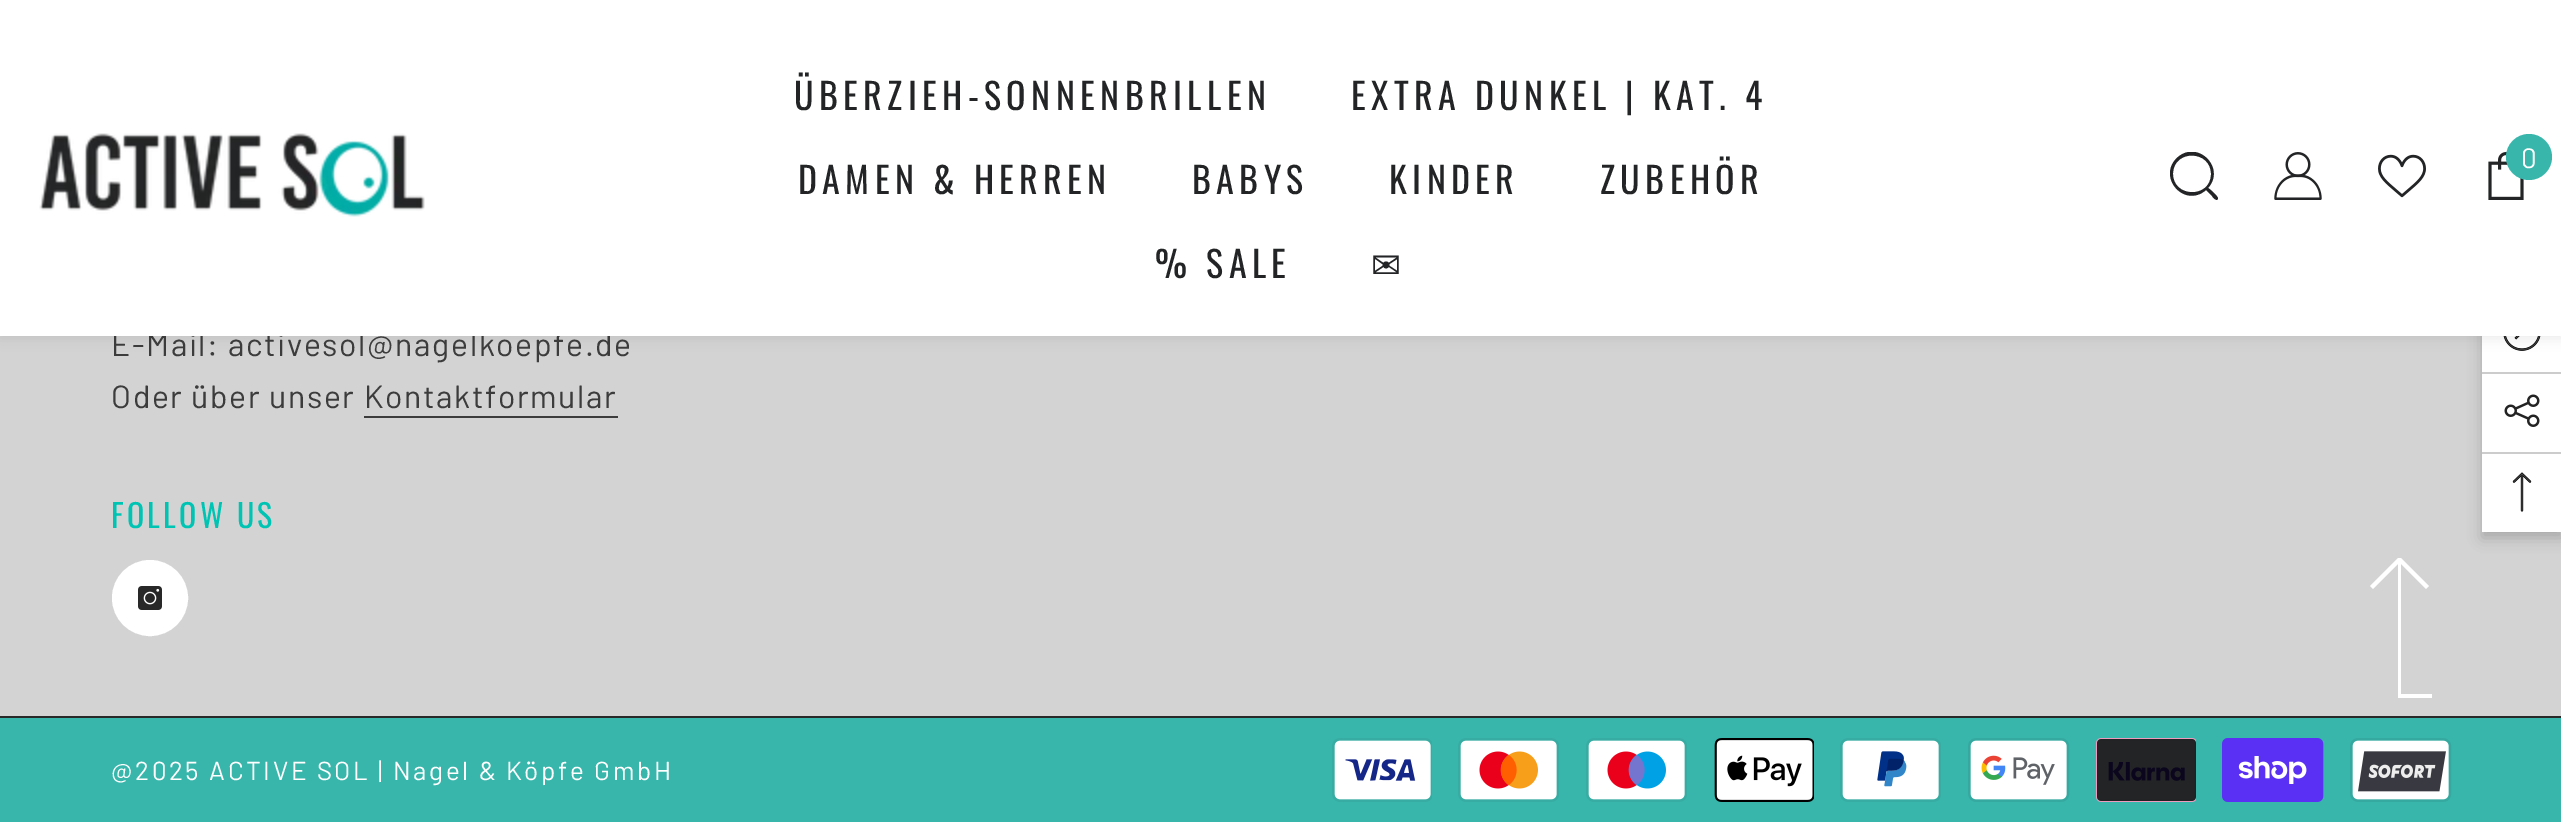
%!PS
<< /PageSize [2561 822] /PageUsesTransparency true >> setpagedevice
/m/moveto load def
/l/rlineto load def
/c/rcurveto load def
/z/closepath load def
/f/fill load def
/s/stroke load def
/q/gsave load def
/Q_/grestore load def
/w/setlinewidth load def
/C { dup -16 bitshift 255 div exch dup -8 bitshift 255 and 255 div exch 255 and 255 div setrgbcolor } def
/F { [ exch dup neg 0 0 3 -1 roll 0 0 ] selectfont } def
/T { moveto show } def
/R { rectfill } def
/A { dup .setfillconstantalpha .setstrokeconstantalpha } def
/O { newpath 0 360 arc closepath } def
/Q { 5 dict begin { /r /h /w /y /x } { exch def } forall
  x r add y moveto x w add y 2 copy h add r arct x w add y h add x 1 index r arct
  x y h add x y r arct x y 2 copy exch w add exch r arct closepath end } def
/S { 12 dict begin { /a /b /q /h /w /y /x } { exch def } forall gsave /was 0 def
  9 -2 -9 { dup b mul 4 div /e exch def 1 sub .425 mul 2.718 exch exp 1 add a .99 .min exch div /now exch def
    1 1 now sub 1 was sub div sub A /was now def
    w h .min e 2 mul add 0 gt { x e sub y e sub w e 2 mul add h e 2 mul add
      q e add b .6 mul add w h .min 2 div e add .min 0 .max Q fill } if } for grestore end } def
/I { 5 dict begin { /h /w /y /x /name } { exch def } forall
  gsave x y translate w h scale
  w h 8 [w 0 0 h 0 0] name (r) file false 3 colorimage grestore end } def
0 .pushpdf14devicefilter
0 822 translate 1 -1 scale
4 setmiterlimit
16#39B6AC C
0 0 2561 822 R
16#D3D3D3 C
0 336 2561 380 R
16#000000 C
2482 298 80 240 0 7 .2 S
16#FFFFFF C
2482 336 79 196 R
(15.rgb) 2503 336 38 15 I
16#1E1E1E C
0 2 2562 336 0 6 .1 S
/Barlow-Regular 32 F
16#3C3C3C C
111 356 m 1.6 0 (E-Mail: activesol@nagelkoepfe.de) ashow
16#FFFFFF C
0 0 2561 336 R
(1.rgb) 39 133 386 84 I
/Oswald-Regular 36 F
16#222425 C
794 110 m 5.4 0 (ÜBERZIEH-SONNENBRILLEN) ashow
1351 110 m 5.4 0 (EXTRA DUNKEL | KAT. 4) ashow
798 194 m 5.4 0 (DAMEN & HERREN) ashow
1192 194 m 5.4 0 (BABYS) ashow
1389 194 m 5.4 0 (KINDER) ashow
1600 194 m 5.4 0 (ZUBEHÖR) ashow
1155 278 m 5.4 0 (% SALE) ashow
/DejaVuSans-Regular 36 F
1371 278 m 5.4 0 (✉) ashow
q
2170 152 48 48 rectclip
2208 188 m 2 1 11 9 10 11 c -2 3 -6 -3 -6 -3 c -6 -6 l -22 19 -50 -14 -28 -33 c 20 -17 48 11 30 31 c z 2211 174 m 0 -24 -37 -25 -38 -1 c -1 25 38 26 38 1 c z f
Q_
(2.rgb) 2274 152 48 48 I
(3.rgb) 2378 154 48 44 I
(4.rgb) 2488 152 36 48 I
16#39B6AC C
2529 157 23 O f
/Barlow-Regular 28 F
16#FFFFFF C
(0) 2521 168 T
/Barlow-Regular 32 F
16#3C3C3C C
111 408 m 1.6 0 (Oder über unser Kontaktformular) ashow
364 416 254 2 R
/Oswald-Regular 32 F
16#00C4B3 C
111 528 m 3.25 0 (FOLLOW US) ashow
16#FFFFFF C
150 598 37 O q f Q_
2 w
s
(5.rgb) 138 586 24 24 I
16#282828 C
0 716 2561 2 R
/Barlow-Regular 26 F
16#FFFFFF C
111 780 m 2.6 0 (@2025 ACTIVE SOL | Nagel & Köpfe GmbH) ashow
(6.rgb) 1332 738 100 64 I
(7.rgb) 1458 738 101 64 I
(8.rgb) 1586 738 101 64 I
(9.rgb) 1714 738 100 64 I
(10.rgb) 1840 738 101 64 I
(11.rgb) 1968 738 102 64 I
(12.rgb) 2096 738 100 64 I
(13.rgb) 2222 738 102 64 I
(14.rgb) 2350 738 102 64 I
16#CCCCCC C
2482 372 79 2 R
(16.rgb) 2504 394 36 33 I
2482 452 79 2 R
(17.rgb) 2512 472 20 40 I
16#FFFFFF C
2373 589 m 25 -25 l 0 134 l 34 0 l 0 -4 l -31 0 l 0 -130 l 25 25 l 3 -3 l -28 -28 l -3 0 l -28 28 l z f
.poppdf14devicefilter showpage
